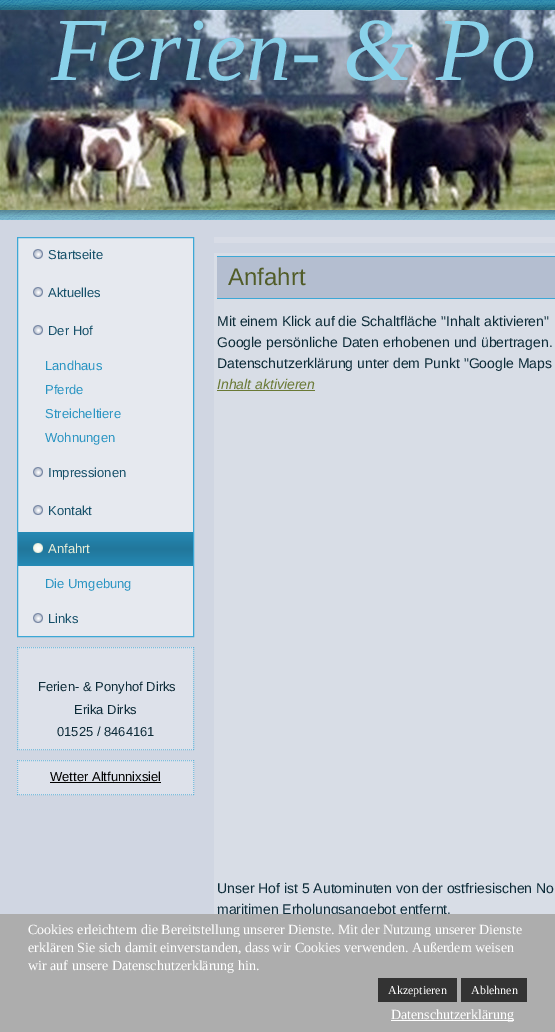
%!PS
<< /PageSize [555 1032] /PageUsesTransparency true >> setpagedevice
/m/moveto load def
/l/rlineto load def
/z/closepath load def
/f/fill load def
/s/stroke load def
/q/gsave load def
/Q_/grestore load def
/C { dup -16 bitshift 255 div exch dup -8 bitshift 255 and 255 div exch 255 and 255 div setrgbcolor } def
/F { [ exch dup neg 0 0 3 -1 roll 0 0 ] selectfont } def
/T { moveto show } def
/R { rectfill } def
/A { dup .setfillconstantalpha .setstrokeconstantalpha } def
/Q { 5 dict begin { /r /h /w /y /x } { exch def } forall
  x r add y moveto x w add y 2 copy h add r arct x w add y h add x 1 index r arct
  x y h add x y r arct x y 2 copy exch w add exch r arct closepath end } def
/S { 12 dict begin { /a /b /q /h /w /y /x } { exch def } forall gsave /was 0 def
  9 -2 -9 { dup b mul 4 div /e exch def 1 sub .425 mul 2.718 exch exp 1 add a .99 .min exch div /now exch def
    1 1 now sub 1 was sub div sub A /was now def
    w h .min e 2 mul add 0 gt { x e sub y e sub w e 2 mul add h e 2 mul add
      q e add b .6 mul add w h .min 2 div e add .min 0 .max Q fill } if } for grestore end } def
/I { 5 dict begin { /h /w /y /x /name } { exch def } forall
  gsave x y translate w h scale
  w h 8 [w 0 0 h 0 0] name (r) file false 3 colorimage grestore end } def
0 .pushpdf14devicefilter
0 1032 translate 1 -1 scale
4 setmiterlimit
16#FFFFFF C
0 0 555 1032 R
(1.rgb) 0 0 555 220 I
16#000000 C
-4 6 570 208 0 3.5 .4 S
(2.rgb) 0 10 555 200 I
/LiberationSerif-Italic 90 F
16#8AD2EA C
(Ferien- & Po) 51 80 T
16#000000 C
-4 216 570 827 0 3.5 .1 S
16#D0D6E2 C
0 220 555 694 R
16#E6E9EF C
17.5 237.5 m 176 0 l 0 399 l -176 0 l z q f Q_
16#3DA8D6 C
s
(3.rgb) 33 249 10 10 I
/LiberationSans-Regular 13 F
16#165069 C
(Startseite) 48 259 T
(3.rgb) 33 287 10 10 I
(Aktuelles) 48 297 T
(3.rgb) 33 325 10 10 I
(Der Hof) 48 335 T
16#2994C2 C
(Landhaus) 45 370 T
(Pferde) 45 394 T
(Streicheltiere) 45 418 T
(Wohnungen) 45 442 T
(3.rgb) 33 467 10 10 I
16#165069 C
(Impressionen) 48 477 T
(3.rgb) 33 505 10 10 I
(Kontakt) 48 515 T
q 18 532 m 175 0 l 0 34 l -175 0 l z clip newpath
<< /ShadingType 2 /ColorSpace /DeviceRGB /Coords [106 532 106 566] /Extend [true true] /Function << /FunctionType 3 /Domain [0 1] /Functions [<< /FunctionType 2 /Domain [0 1] /C0 [.149 .541 .71] /C1 [.133 .478 .627] /N 1 >> << /FunctionType 2 /Domain [0 1] /C0 [.133 .478 .627] /C1 [.129 .467 .612] /N 1 >> << /FunctionType 2 /Domain [0 1] /C0 [.129 .467 .612] /C1 [.133 .478 .627] /N 1 >> << /FunctionType 2 /Domain [0 1] /C0 [.133 .478 .627] /C1 [.149 .541 .71] /N 1 >>] /Bounds [.4 .5 .6] /Encode [0 1 0 1 0 1 0 1] >> >> shfill Q_
(4.rgb) 33 543 10 10 I
16#E9EED8 C
(Anfahrt) 48 553 T
16#2994C2 C
(Die Umgebung) 45 588 T
(3.rgb) 33 613 10 10 I
16#165069 C
(Links) 48 623 T
16#DDE1EA C
17 647 177 103 R
16#7DBFDE C
[1 1] 0 setdash
17 647.5 m 177 0 l s
0.6 A
16#3DA8D6 C
193.5 647 m 0 103 l s
17 749.5 m 177 0 l s
17.5 647 m 0 103 l s
1 A
16#0C2A37 C
(Ferien- & Ponyhof Dirks) 38 691 T
(Erika Dirks) 74 714 T
(01525 / 8464161) 57 736 T
16#DDE1EA C
17 760 177 35 R
16#7DBFDE C
17 760.5 m 177 0 l s
0.6 A
16#3DA8D6 C
193.5 760 m 0 35 l s
17 794.5 m 177 0 l s
17.5 760 m 0 35 l s
1 A
16#000000 C
(Wetter Altfunnixsiel) 50 781 T
50 782 111 1 R
16#D8DCE6 C
214 237 341 6 R
16#D8DDE6 C
214 253 341 661 R
16#B4BED0 C
217 257 338 41 R
16#3DA8D6 C
217 256 338 1 R
217 298 338 1 R
/LiberationSans-Regular 24 F
16#515C28 C
(Anfahrt) 228 285 T
/LiberationSans-Regular 14 F
16#0C2A37 C
(Mit einem Klick auf die Schaltfläche "Inhalt aktivieren") 217 326 T
(Google persönliche Daten erhobenen und übertragen.) 217 347 T
(Datenschutzerklärung unter dem Punkt "Google Maps) 217 368 T
/LiberationSans-Italic 14 F
16#6A7935 C
(Inhalt aktivieren) 217 389 T
217 390 98 1 R
/LiberationSans-Regular 14 F
16#0C2A37 C
(Unser Hof ist 5 Autominuten von der ostfriesischen No) 217 893 T
(maritimen Erholungsangebot entfernt.) 217 914 T
16#ADADAD C
0 914 555 118 R
/LiberationSerif-Regular 14 F
16#FFFFFF C
(Cookies erleichtern die Bereitstellung unserer Dienste. Mit der Nutzung unserer Dienste) 28 934 T
(erklären Sie sich damit einverstanden, dass wir Cookies verwenden. Außerdem weisen) 28 952 T
(wir auf unsere Datenschutzerklärung hin.) 28 970 T
16#333333 C
378 978 79 24 R
/LiberationSerif-Regular 12 F
16#FFFFFF C
(Akzeptieren) 388 994 T
16#333333 C
461 978 66 24 R
16#FFFFFF C
(Ablehnen) 471 994 T
391 1020 123 1 R
/LiberationSerif-Regular 14 F
(Datenschutzerklärung) 391 1019 T
.poppdf14devicefilter showpage
